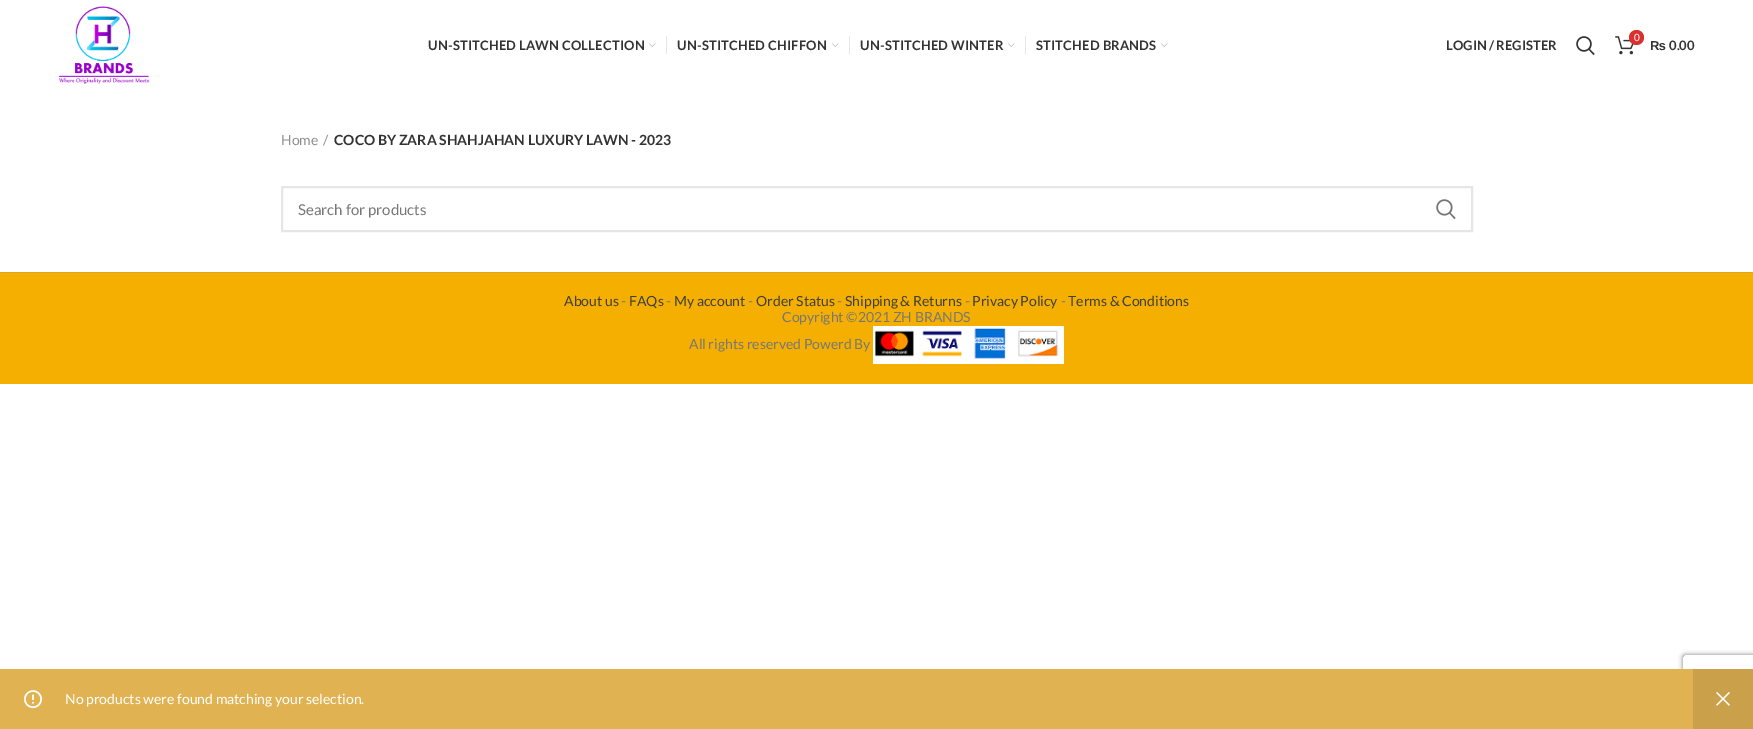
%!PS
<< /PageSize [1753 729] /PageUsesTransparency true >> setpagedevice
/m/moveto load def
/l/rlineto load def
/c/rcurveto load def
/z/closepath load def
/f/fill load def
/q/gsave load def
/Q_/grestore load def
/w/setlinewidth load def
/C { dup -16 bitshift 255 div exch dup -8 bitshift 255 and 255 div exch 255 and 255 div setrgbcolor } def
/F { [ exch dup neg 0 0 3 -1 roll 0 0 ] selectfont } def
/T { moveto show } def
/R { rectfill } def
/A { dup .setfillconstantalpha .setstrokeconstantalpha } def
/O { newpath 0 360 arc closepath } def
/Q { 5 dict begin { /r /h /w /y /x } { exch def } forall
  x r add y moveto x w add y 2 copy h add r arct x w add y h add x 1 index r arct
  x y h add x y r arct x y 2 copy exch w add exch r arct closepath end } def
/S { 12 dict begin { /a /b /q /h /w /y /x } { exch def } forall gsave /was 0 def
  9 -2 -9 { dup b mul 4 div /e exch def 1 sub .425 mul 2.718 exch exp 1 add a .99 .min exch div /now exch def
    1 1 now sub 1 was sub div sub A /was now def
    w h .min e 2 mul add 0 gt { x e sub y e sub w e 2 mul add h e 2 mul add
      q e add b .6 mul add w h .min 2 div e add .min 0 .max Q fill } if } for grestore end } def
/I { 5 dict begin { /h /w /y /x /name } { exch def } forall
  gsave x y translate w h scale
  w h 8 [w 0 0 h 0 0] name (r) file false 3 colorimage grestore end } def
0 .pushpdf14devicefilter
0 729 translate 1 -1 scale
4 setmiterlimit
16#FFFFFF C
0 0 1753 729 R
(1.rgb) 59 6 91 78 I
/Lato-Bold 13 F
16#333333 C
428 50 m .2 0 (UN-STITCHED LAWN COLLECTION) ashow
(2.rgb) 649 43 7 4 I
16#E6E6E6 C
666 36 1 18 R
16#333333 C
677 50 m .2 0 (UN-STITCHED CHIFFON) ashow
(2.rgb) 832 43 7 4 I
16#E6E6E6 C
849 36 1 18 R
16#333333 C
860 50 m .2 0 (UN-STITCHED WINTER) ashow
(2.rgb) 1008 43 7 4 I
16#E6E6E6 C
1025 36 1 18 R
16#333333 C
1036 50 m .2 0 (STITCHED BRANDS) ashow
(2.rgb) 1161 43 7 4 I
(LOGIN / REGISTER) 1446 50 T
(3.rgb) 1576 36 19 20 I
(4.rgb) 1615 36 19 19 I
16#DB3030 C
1636.5 37.5 7.5 O f
/Lato-Regular 10 F
16#FFFFFF C
(0) 1634 41 T
/LiberationSans-Bold 13 F
16#333333 C
(₨) 1650 50 T
/Lato-Bold 13 F
(0.00) 1669 50 T
/Lato-Regular 14 F
16#8E8E8E C
(Home) 281 145 T
(/) 323 145 T
/Lato-Bold 14 F
16#333333 C
(COCO BY ZARA SHAHJAHAN LUXURY LAWN - 2023) 334 145 T
16#E6E6E6 C
2 w
282 187 1190 44 rectstroke
/Lato-Regular 15 F
16#777777 C
(Search for products) 298 215 T
(5.rgb) 1436 199 20 21 I
q
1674 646 m 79 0 l 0 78 l -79 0 l z 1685 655 m 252 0 l 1 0 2 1 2 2 c 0 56 l 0 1 -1 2 -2 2 c -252 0 l -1 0 -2 -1 -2 -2 c 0 -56 l 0 -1 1 -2 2 -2 c z eoclip newpath
16#808080 C
1683 655 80 60 2 2.5 1 S
Q_
16#E0B252 C
0 669 1693 60 R
(6.rgb) 24 690 18 19 I
/Lato-Regular 14 F
16#FFFFFF C
(No products were found matching your selection.) 65 704 T
16#CAA04A C
1693 669 60 60 R
(7.rgb) 1716 692 14 14 I
16#F4AF00 C
0 273 1753 111 R
16#DDA61A C
0 272 1753 1 R
16#3F3F3F C
(About us) 564 306 T
16#777777 C
(-) 621 306 T
16#3F3F3F C
(FAQs) 629 306 T
16#777777 C
(-) 666 306 T
16#3F3F3F C
(My account) 674 306 T
16#777777 C
(-) 748 306 T
16#3F3F3F C
(Order Status) 756 306 T
16#777777 C
(-) 837 306 T
16#3F3F3F C
(Shipping & Returns) 845 306 T
16#777777 C
(-) 965 306 T
16#3F3F3F C
(Privacy Policy) 972 306 T
16#777777 C
(-) 1061 306 T
16#3F3F3F C
(Terms & Conditions) 1068 306 T
16#777777 C
(Copyright ©2021 ZH BRANDS) 782 322 T
(All rights reserved Powerd By) 689 349 T
(8.rgb) 873 326 191 38 I
.poppdf14devicefilter showpage
